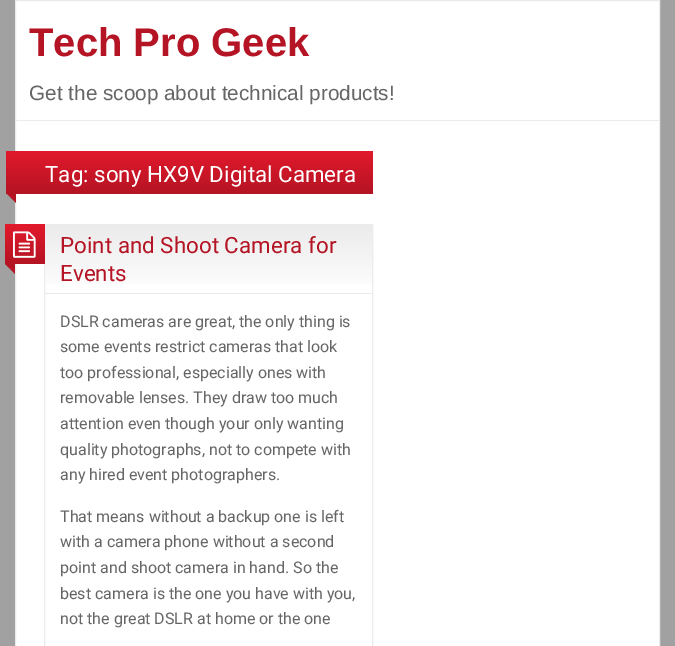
%!PS
<< /PageSize [675 646] >> setpagedevice
/m/moveto load def
/l/rlineto load def
/z/closepath load def
/f/fill load def
/s/stroke load def
/q/gsave load def
/Q_/grestore load def
/C { dup -16 bitshift 255 div exch dup -8 bitshift 255 and 255 div exch 255 and 255 div setrgbcolor } def
/F { [ exch dup neg 0 0 3 -1 roll 0 0 ] selectfont } def
/T { moveto show } def
/R { rectfill } def
/I { 5 dict begin { /h /w /y /x /name } { exch def } forall
  gsave x y translate w h scale
  w h 8 [w 0 0 h 0 0] name (r) file false 3 colorimage grestore end } def
0 646 translate 1 -1 scale
4 setmiterlimit
16#A1A1A1 C
0 0 675 646 R
16#FFFFFF C
15.5 .5 m 644 0 l 0 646 l -644 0 l z q f Q_
16#EBEBEB C
s
/Arimo-Bold 40 F
16#B41423 C
(Tech Pro Geek) 29 56 T
/Arimo-Regular 20.75 F
16#666666 C
(Get the scoop about technical products!) 29 100 T
16#EBEBEB C
16 120 643 1 R
q 6 151 m 367 0 l 0 43 l -367 0 l z clip newpath
<< /ShadingType 2 /ColorSpace /DeviceRGB /Coords [6 151 6 194] /Extend [true true] /Function << /FunctionType 2 /Domain [0 1] /C0 [.886 .098 .173] /C1 [.706 .078 .137] /N 1 >> >> shfill Q_
/Roboto-Regular 22.4 F
16#FFFFFF C
(Tag: sony HX9V Digital Camera) 45 182 T
16#B41423 C
6 193 m 10 0 l 0 10 l z f
16#EBEBEB C
44.5 224.5 328 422 rectstroke
q 5 224 m 40 0 l 0 40 l -40 0 l z clip newpath
<< /ShadingType 2 /ColorSpace /DeviceRGB /Coords [5 224 5 264] /Extend [true true] /Function << /FunctionType 2 /Domain [0 1] /C0 [.886 .098 .173] /C1 [.706 .078 .137] /N 1 >> >> shfill Q_
(1.rgb) 13 231 23 27 I
16#B41423 C
5 264 m 10 0 l 0 10 l z f
q 45 225 m 327 0 l 0 59 l -327 0 l z clip newpath
<< /ShadingType 2 /ColorSpace /DeviceRGB /Coords [45 225 45 293] /Extend [true true] /Function << /FunctionType 2 /Domain [0 1] /C0 [.922 .922 .922] /C1 [1 1 1] /N 1 >> >> shfill Q_
q 45 293 m 327 0 l 0 1 l -327 0 l z clip newpath
<< /ShadingType 2 /ColorSpace /DeviceRGB /Coords [45 293 45 361] /Extend [true true] /Function << /FunctionType 2 /Domain [0 1] /C0 [.922 .922 .922] /C1 [1 1 1] /N 1 >> >> shfill Q_
(Point and Shoot Camera for) 60 253 T
(Events) 60 281 T
/Roboto-Regular 16 F
16#666666 C
(DSLR cameras are great, the only thing is) 60 327 T
(some events restrict cameras that look) 60 352 T
(too professional, especially ones with) 60 378 T
(removable lenses. They draw too much) 60 403 T
(attention even though your only wanting) 60 429 T
(quality photographs, not to compete with) 60 455 T
(any hired event photographers.) 60 480 T
(That means without a backup one is left) 60 522 T
(with a camera phone without a second) 60 547 T
(point and shoot camera in hand. So the) 60 573 T
(best camera is the one you have with you,) 60 599 T
(not the great DSLR at home or the one) 60 624 T
showpage
